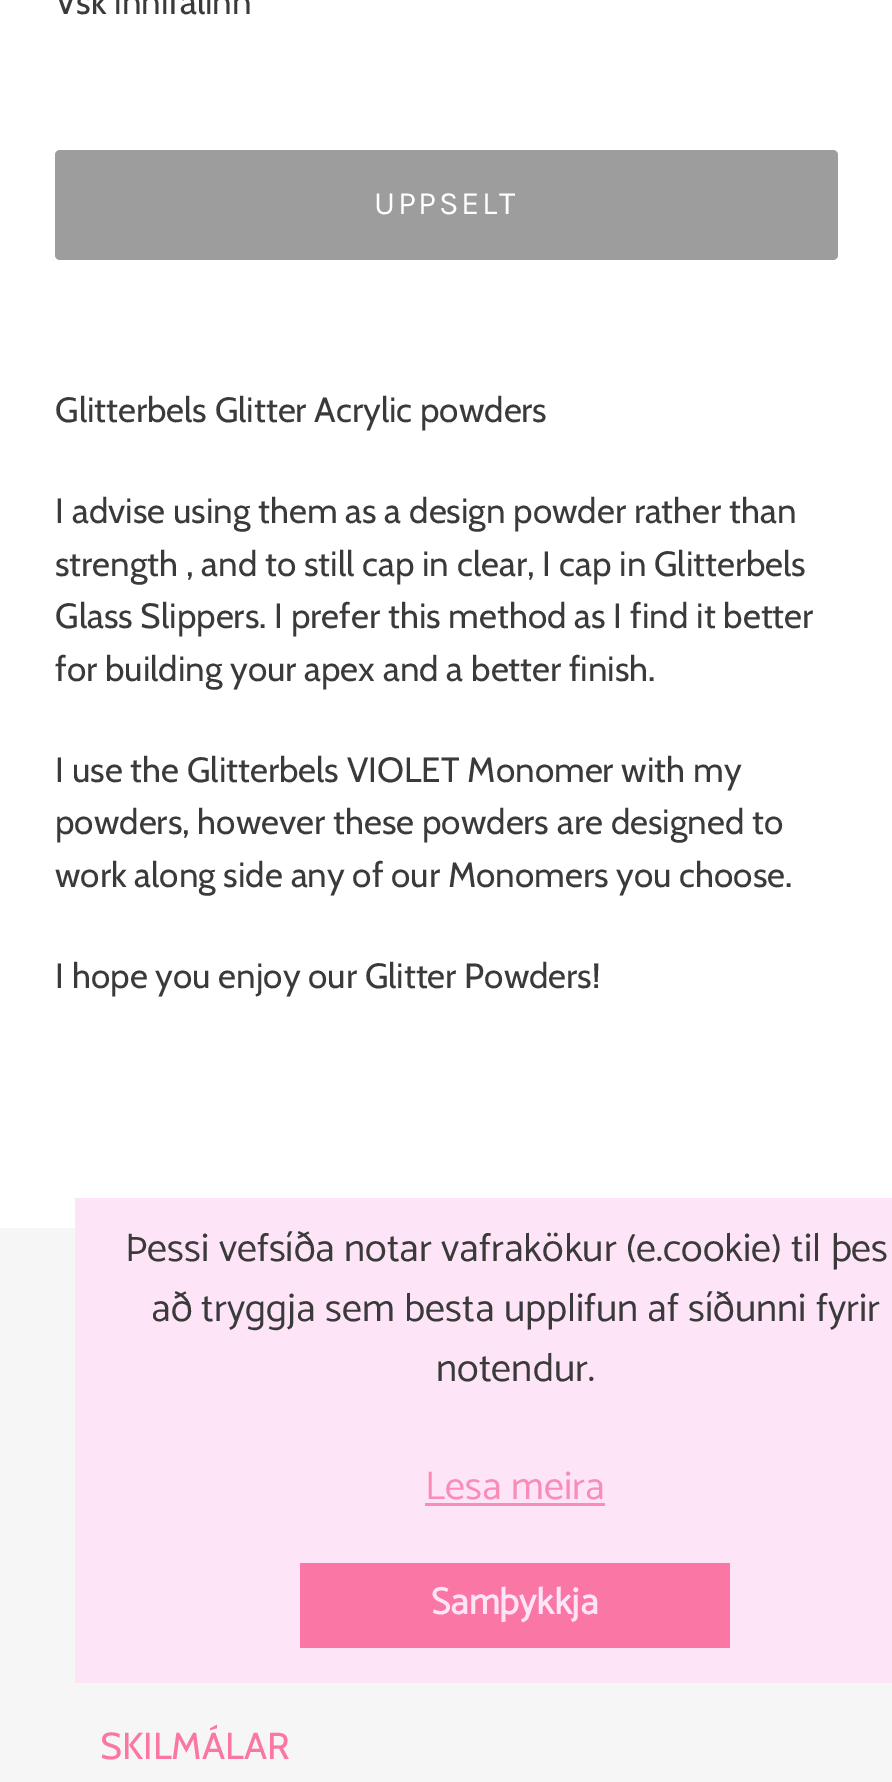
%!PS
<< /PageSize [892 1782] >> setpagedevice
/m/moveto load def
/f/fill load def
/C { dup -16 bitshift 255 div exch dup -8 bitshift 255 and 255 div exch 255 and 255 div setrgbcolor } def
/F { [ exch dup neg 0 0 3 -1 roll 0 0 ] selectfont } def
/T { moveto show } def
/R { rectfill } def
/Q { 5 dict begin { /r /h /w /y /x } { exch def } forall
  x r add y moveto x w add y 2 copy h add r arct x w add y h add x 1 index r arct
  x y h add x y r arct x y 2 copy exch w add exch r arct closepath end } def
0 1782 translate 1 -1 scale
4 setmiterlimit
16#FFFFFF C
0 0 892 1782 R
/Cabin-Regular 35 F
16#3A3A3A C
(Vsk innifalinn) 55 14 T
16#9D9D9D C
55 150 783 110 5 Q f
/Karla-Regular 32.5 F
16#FFFFFF C
374 214 m 2.5 0 (UPPSELT) ashow
/Cabin-Regular 35 F
16#3A3A3A C
(Glitterbels Glitter Acrylic powders) 55 422 T
(I advise using them as a design powder rather than) 55 523 T
(strength , and to still cap in clear, I cap in Glitterbels) 55 576 T
(Glass Slippers. I prefer this method as I find it better) 55 628 T
(for building your apex and a better finish.) 55 681 T
(I use the Glitterbels VIOLET Monomer with my) 55 782 T
(powders, however these powders are designed to) 55 834 T
(work along side any of our Monomers you choose.) 55 887 T
(I hope you enjoy our Glitter Powders!) 55 988 T
16#F6F6F6 C
0 1228 892 554 R
/Cabin-Regular 37.5 F
16#F976A5 C
(SKILMÁLAR) 100 1759 T
16#FDE4F7 C
75 1198 817 485 R
/Catamaran-Thin 40 F
16#3A3A3A C
(Þessi vefsíða notar vafrakökur \(e.cookie\) til þes) 125 1261 T
(að tryggja sem besta upplifun af síðunni fyrir) 151 1321 T
(notendur.) 436 1381 T
16#FA8CB5 C
(Lesa meira) 425 1499 T
425 1503 180 3 R
16#F976A5 C
300 1563 430 85 R
/Catamaran-Bold 37.5 F
16#FDE4F7 C
(Samþykkja) 431 1614 T
showpage
